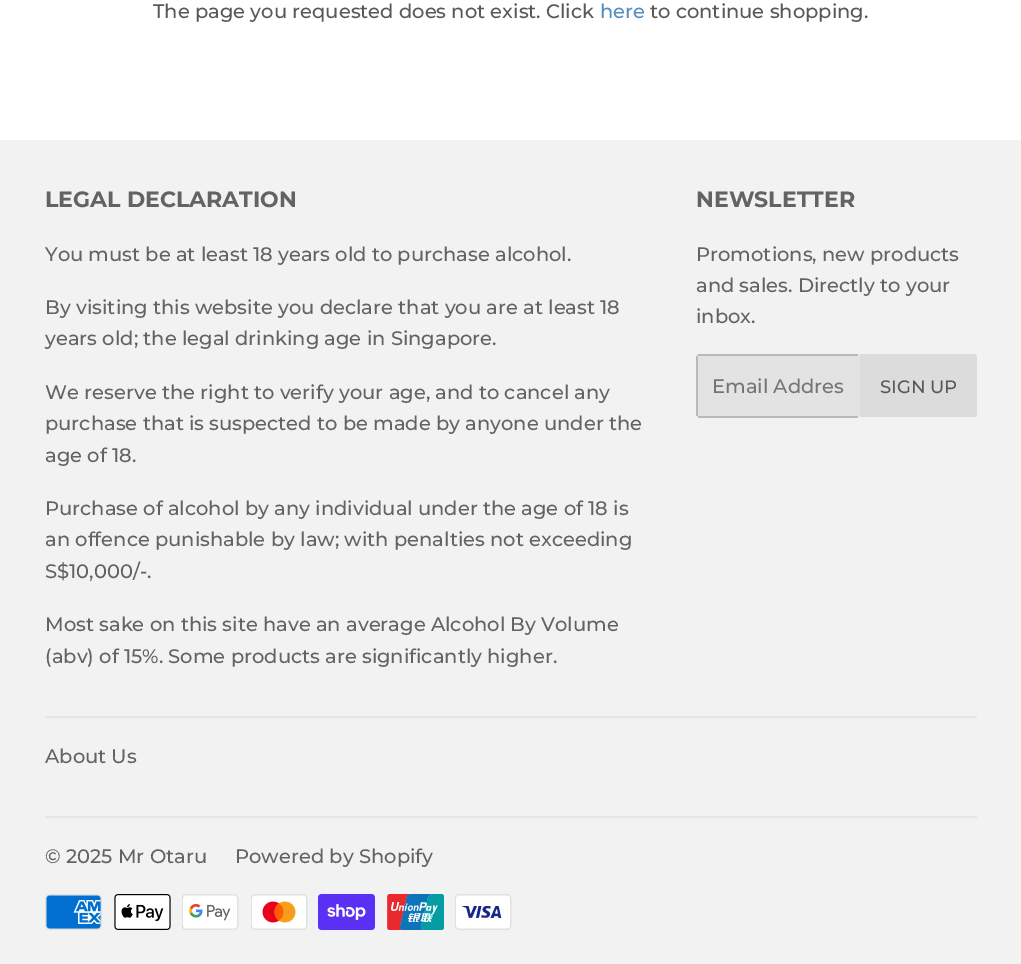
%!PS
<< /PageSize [1021 964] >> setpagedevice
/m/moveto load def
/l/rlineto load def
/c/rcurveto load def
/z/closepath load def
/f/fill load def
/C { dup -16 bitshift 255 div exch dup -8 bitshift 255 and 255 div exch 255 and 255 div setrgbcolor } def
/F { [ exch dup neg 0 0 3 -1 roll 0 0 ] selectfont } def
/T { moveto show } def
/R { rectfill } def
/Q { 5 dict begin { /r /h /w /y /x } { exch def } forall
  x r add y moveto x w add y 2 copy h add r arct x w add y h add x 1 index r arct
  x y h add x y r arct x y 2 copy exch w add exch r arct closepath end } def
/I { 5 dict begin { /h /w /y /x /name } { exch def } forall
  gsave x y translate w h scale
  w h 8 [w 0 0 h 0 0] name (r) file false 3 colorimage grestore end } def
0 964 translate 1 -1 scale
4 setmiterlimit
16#FFFFFF C
0 0 1021 964 R
/Montserrat-Medium 19.5 F
16#585858 C
(The page you requested does not exist. Click) 153 18 T
16#528EC1 C
(here) 600 18 T
16#585858 C
(to continue shopping.) 650 18 T
16#F2F2F2 C
0 140 1021 824 R
/Montserrat-Bold 22.1 F
16#636363 C
(LEGAL DECLARATION) 45 207 T
/Montserrat-Medium 19.5 F
(You must be at least 18 years old to purchase alcohol.) 45 261 T
(By visiting this website you declare that you are at least 18) 45 314 T
(years old; the legal drinking age in Singapore.) 45 345 T
(We reserve the right to verify your age, and to cancel any) 45 399 T
(purchase that is suspected to be made by anyone under the) 45 430 T
(age of 18.) 45 462 T
(Purchase of alcohol by any individual under the age of 18 is) 45 515 T
(an offence punishable by law; with penalties not exceeding) 45 546 T
(S$10,000/-.) 45 578 T
(Most sake on this site have an average Alcohol By Volume) 45 631 T
(\(abv\) of 15%. Some products are significantly higher.) 45 663 T
/Montserrat-Bold 22.1 F
(NEWSLETTER) 696 207 T
/Montserrat-Medium 19.5 F
(Promotions, new products) 696 261 T
(and sales. Directly to your) 696 292 T
(inbox.) 696 323 T
16#E3E3E3 C
696 354 164 63 3 Q f
16#B9B9B9 C
698 354 160 2 R
698 416 160 2 R
696 356 2 60 R
16#757575 C
(Email Addres) 712 393 T
16#DCDCDC C
860 354 m 114 0 l 1.5 0 3 1.5 3 3 c 0 57 l 0 1.5 -1.5 3 -3 3 c -114 0 l z f
/Montserrat-Medium 18 F
16#585858 C
(SIGN UP) 880 393 T
16#E5E5E5 C
45 716 932 2 R
/Montserrat-Medium 19.5 F
16#636363 C
(About Us) 45 763 T
16#E5E5E5 C
45 816 932 2 R
16#636363 C
(© 2025 Mr Otaru) 45 863 T
(Powered by Shopify) 235 863 T
(1.rgb) 45 894 57 36 I
(2.rgb) 114 894 57 36 I
(3.rgb) 182 894 57 36 I
(4.rgb) 251 894 57 36 I
(5.rgb) 318 894 57 36 I
(6.rgb) 387 894 57 36 I
(7.rgb) 455 894 57 36 I
showpage
